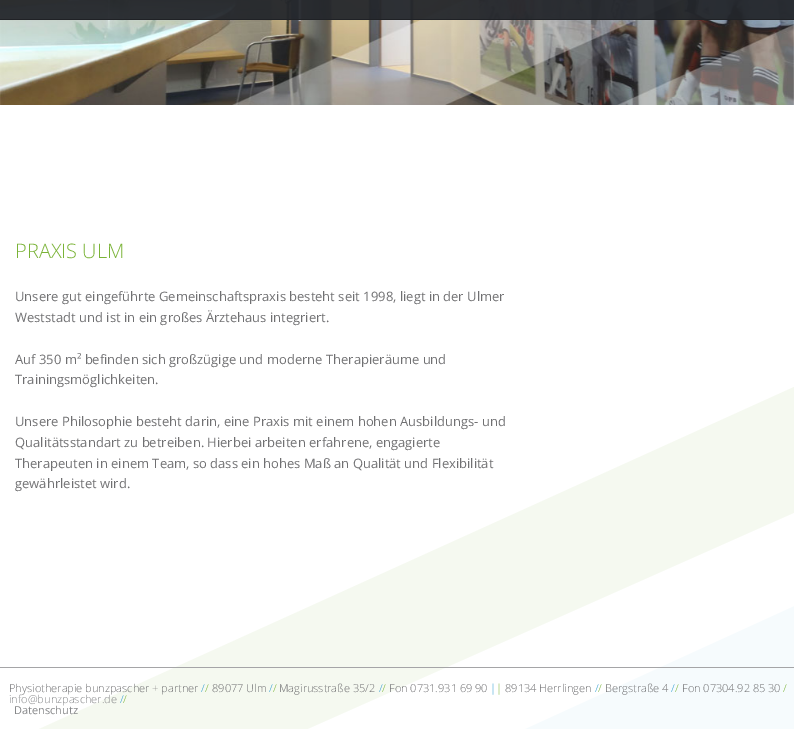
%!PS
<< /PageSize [794 729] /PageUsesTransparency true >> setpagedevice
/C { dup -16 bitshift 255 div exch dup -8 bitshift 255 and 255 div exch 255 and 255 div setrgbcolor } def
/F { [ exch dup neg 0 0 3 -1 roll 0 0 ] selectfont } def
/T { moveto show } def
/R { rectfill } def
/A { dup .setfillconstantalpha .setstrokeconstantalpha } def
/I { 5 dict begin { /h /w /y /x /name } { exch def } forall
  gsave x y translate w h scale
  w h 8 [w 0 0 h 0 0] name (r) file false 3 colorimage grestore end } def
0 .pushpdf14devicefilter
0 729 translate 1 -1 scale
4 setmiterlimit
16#FFFFFF C
0 0 794 729 R
(1.rgb) 0 0 794 105 I
0.7 A
16#323A45 C
0 0 794 19 R
1 A
16#202226 C
0 19 794 1 R
0.8 A
0 0 794 19 R
/OpenSans-Light 20 F
1 A
16#7AB337 C
(PRAXIS ULM) 15 258 T
/OpenSans-Regular 13 F
16#707072 C
(Unsere gut eingeführte Gemeinschaftspraxis besteht seit 1998, liegt in der Ulmer) 15 301 T
(Weststadt und ist in ein großes Ärztehaus integriert.) 15 322 T
(Auf 350 m² befinden sich großzügige und moderne Therapieräume und) 15 364 T
(2.rgb) 39 387 755 342 I
(Trainingsmöglichkeiten.) 15 384 T
(Unsere Philosophie besteht darin, eine Praxis mit einem hohen Ausbildungs- und) 15 426 T
(Qualitätsstandart zu betreiben. Hierbei arbeiten erfahrene, engagierte) 15 447 T
(Therapeuten in einem Team, so dass ein hohes Maß an Qualität und Flexibilität) 15 468 T
(gewährleistet wird.) 15 488 T
16#A5A5A7 C
0 667 794 1 R
/OpenSans-Light 11 F
16#707072 C
(Physiotherapie bunzpascher + partner) 9 692 T
16#2F9CD1 C
(/) 201 692 T
16#7AB337 C
(/) 205 692 T
16#707072 C
(89077 Ulm) 212 692 T
16#2F9CD1 C
(/) 269 692 T
16#7AB337 C
(/) 273 692 T
16#707072 C
(Magirusstraße 35/2) 279 692 T
16#2F9CD1 C
(/) 379 692 T
16#7AB337 C
(/) 382 692 T
16#707072 C
(Fon 0731.931 69 90) 389 692 T
16#2F9CD1 C
(|) 490 692 T
16#7AB337 C
(|) 496 692 T
16#707072 C
(89134 Herrlingen) 505 692 T
16#2F9CD1 C
(/) 595 692 T
16#7AB337 C
(/) 598 692 T
16#707072 C
(Bergstraße 4) 605 692 T
16#2F9CD1 C
(/) 671 692 T
16#7AB337 C
(/) 675 692 T
16#707072 C
(Fon 07304.92 85 30) 682 692 T
16#7AB337 C
(/) 783 692 T
16#87888A C
(info@bunzpascher.de) 9 703 T
16#2F9CD1 C
(/) 120 703 T
16#7AB337 C
(/) 123 703 T
/OpenSans-Regular 11 F
16#87888A C
(Datenschutz) 14 714 T
.poppdf14devicefilter showpage
